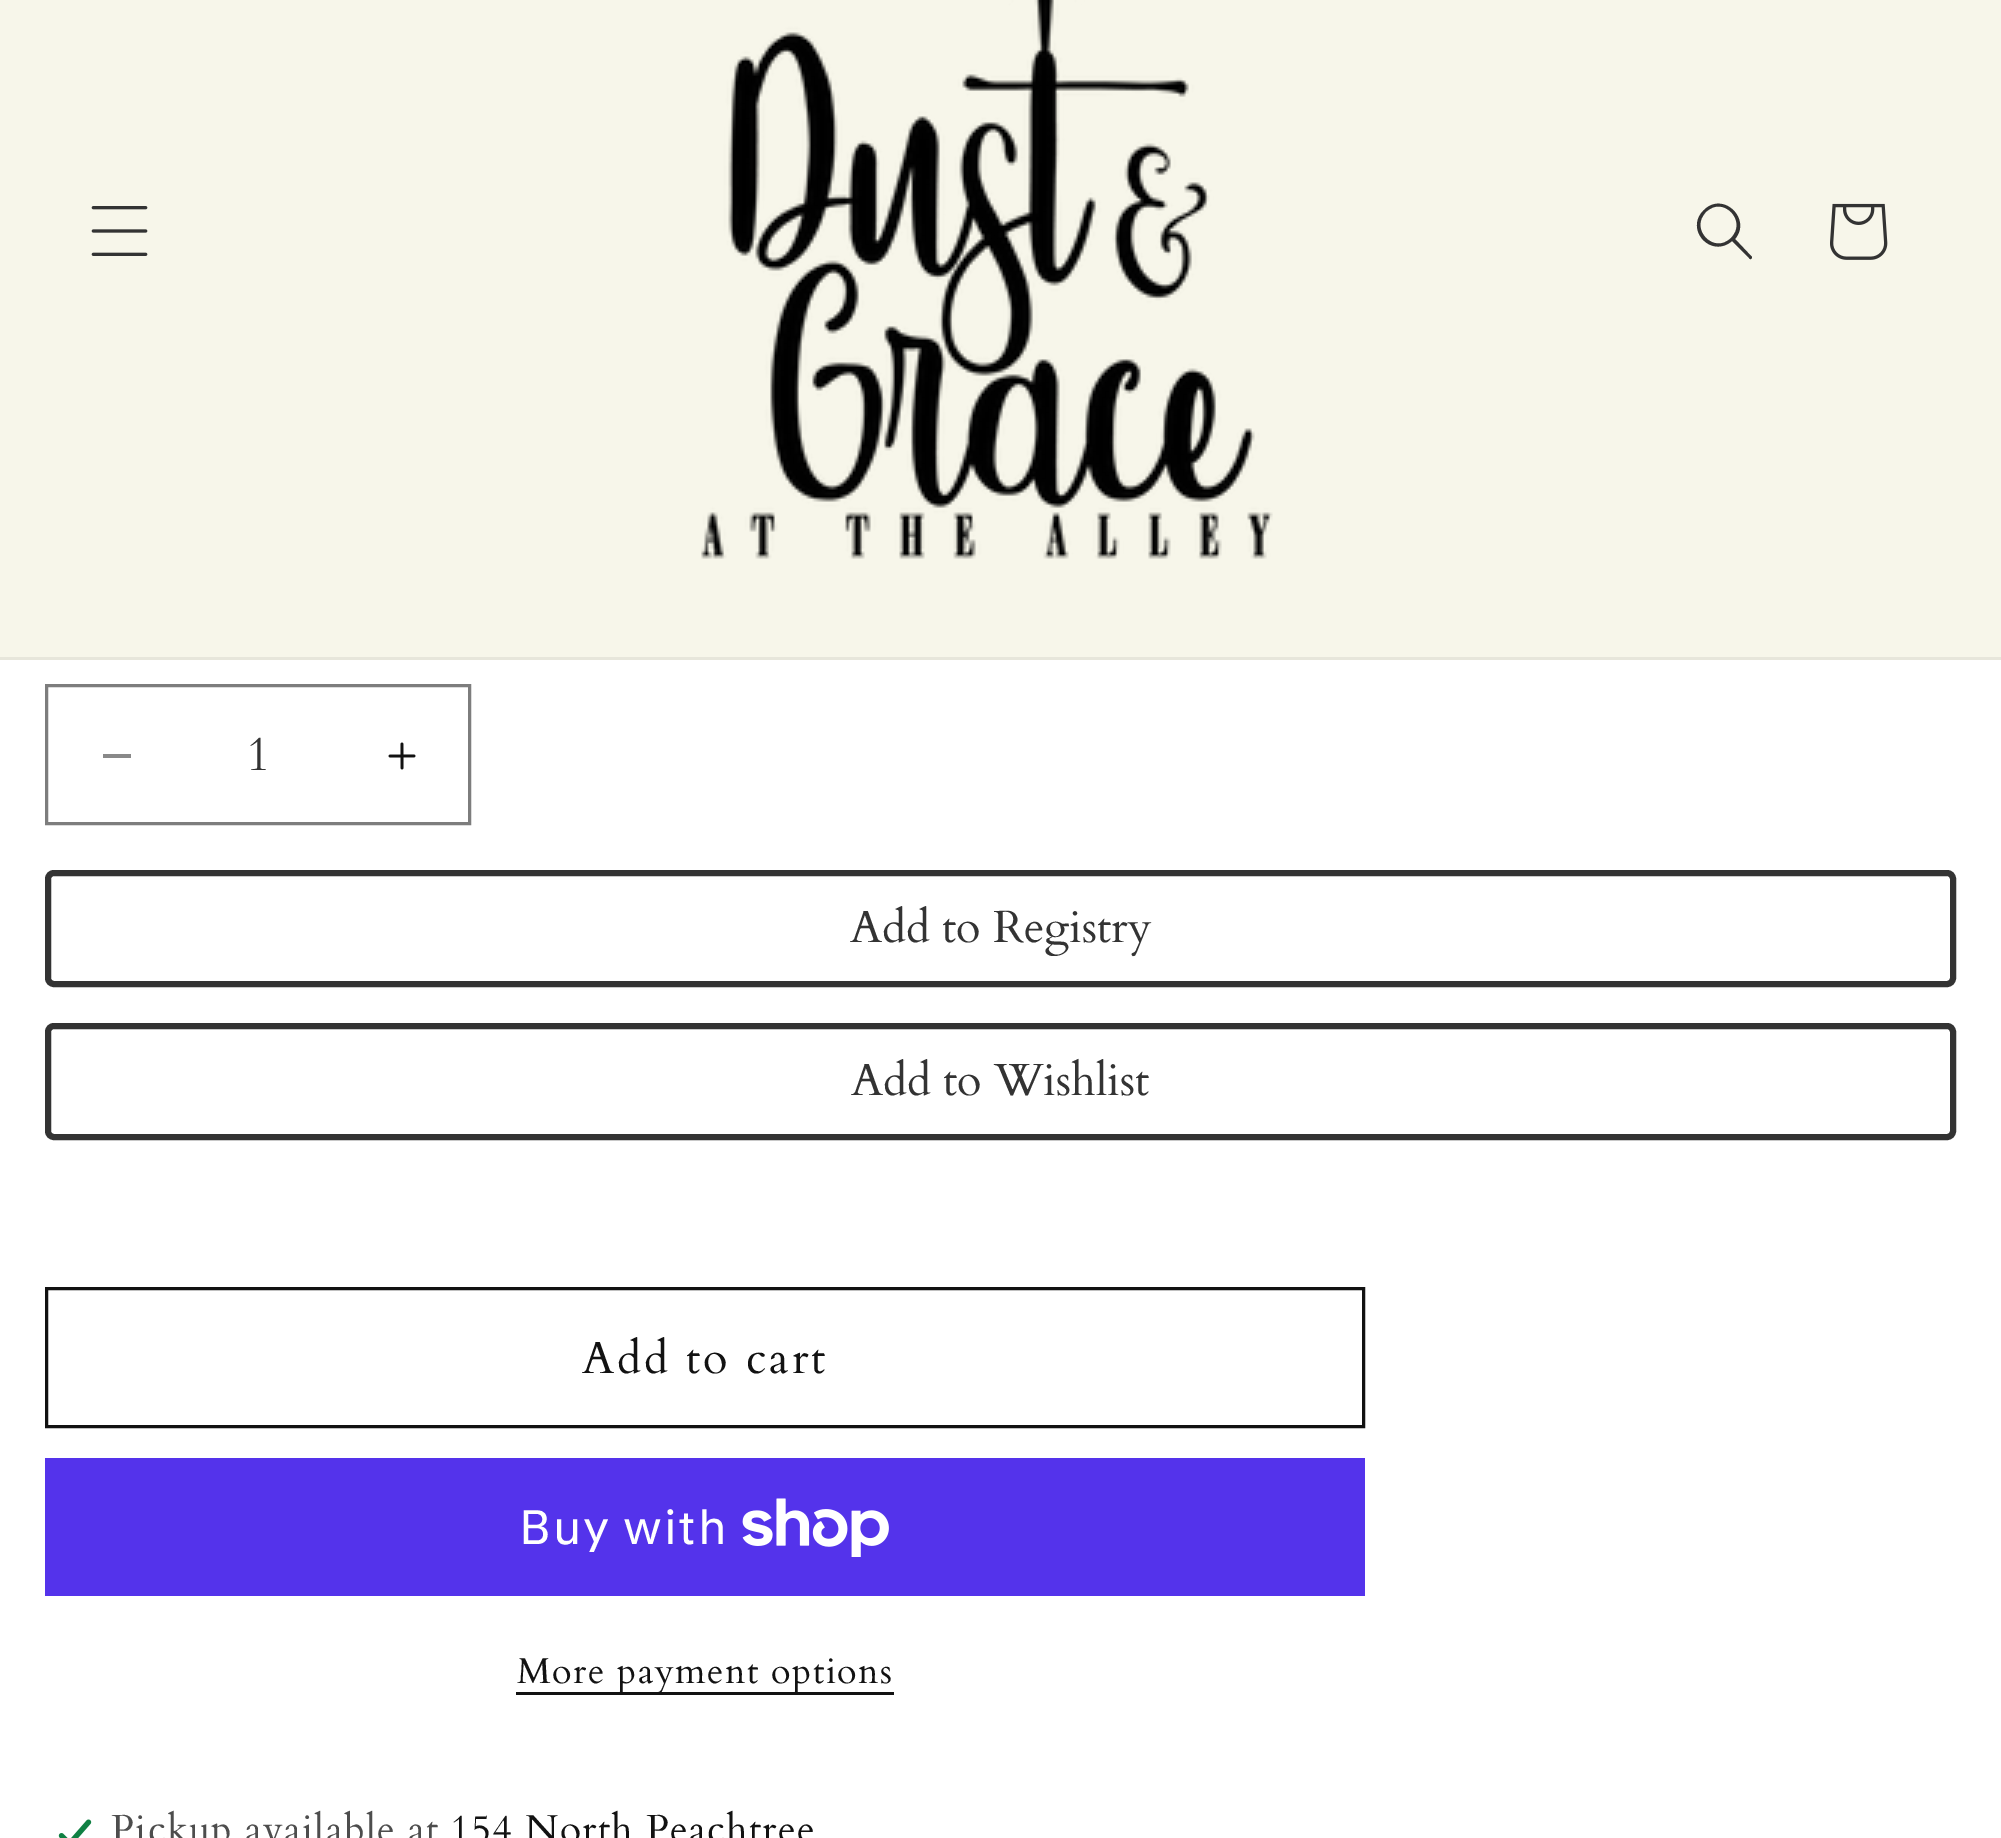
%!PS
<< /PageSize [2001 1838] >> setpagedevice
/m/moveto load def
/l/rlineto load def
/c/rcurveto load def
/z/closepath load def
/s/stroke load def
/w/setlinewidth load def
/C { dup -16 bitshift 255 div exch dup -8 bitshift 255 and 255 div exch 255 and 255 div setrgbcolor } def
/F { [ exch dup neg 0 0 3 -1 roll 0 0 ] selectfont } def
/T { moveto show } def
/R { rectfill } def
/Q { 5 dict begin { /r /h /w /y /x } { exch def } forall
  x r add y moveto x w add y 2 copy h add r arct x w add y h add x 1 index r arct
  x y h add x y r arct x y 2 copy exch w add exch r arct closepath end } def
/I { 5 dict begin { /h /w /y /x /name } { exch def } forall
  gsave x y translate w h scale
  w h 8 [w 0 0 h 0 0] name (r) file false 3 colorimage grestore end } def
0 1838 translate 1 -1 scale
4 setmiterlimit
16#FFFFFF C
0 0 2001 1838 R
16#F7F6EA C
0 0 2001 657 R
16#E7E6DB C
0 657 2001 3 R
(1.rgb) 91 206 57 50 I
(2.rgb) 701 0 572 559 I
16#333333 C
1731 238 m -17 17 -42 -9 -25 -26 c 17 -17 42 9 25 26 c 1732 241 m -21 18 -48 -12 -28 -31 c 19 -19 48 9 31 29 c 17 18 l 0 2 -2 3 -3 1 c z eofill
(3.rgb) 1830 203 58 57 I
16#898989 C
103 754 28 4 R
(4.rgb) 388 742 28 28 I
16#7D7D7D C
3 w
46.5 685.5 423 138 rectstroke
/Cardo-Regular 48 F
16#333333 C
(1) 246 770 T
6 w
48 873 1905 111 6 Q s
/Cardo-Regular 45 F
(Add to Registry) 850 942 T
48 1026 1905 111 6 Q s
(Add to Wishlist) 851 1095 T
16#121212 C
3 w
46.5 1288.5 1317 138 rectstroke
582 1373 m 3 0 (Add to cart) ashow
16#5433EB C
45 1458 1320 138 R
/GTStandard-Regular 48 F
16#FFFFFF C
519 1544 m 1.75 0 (Buy with) ashow
(5.rgb) 742 1498 147 59 I
16#121212 C
516 1692 378 3 R
/Cardo-Regular 36 F
517 1683 m 1.5 0 (More payment options) ashow
(6.rgb) 58 1819 34 19 I
/Cardo-Regular 39 F
16#4D4D4D C
111 1842 m 1.25 0 (Pickup available at) ashow
16#121212 C
450 1842 m 1.25 0 (154 North Peachtree) ashow
showpage
